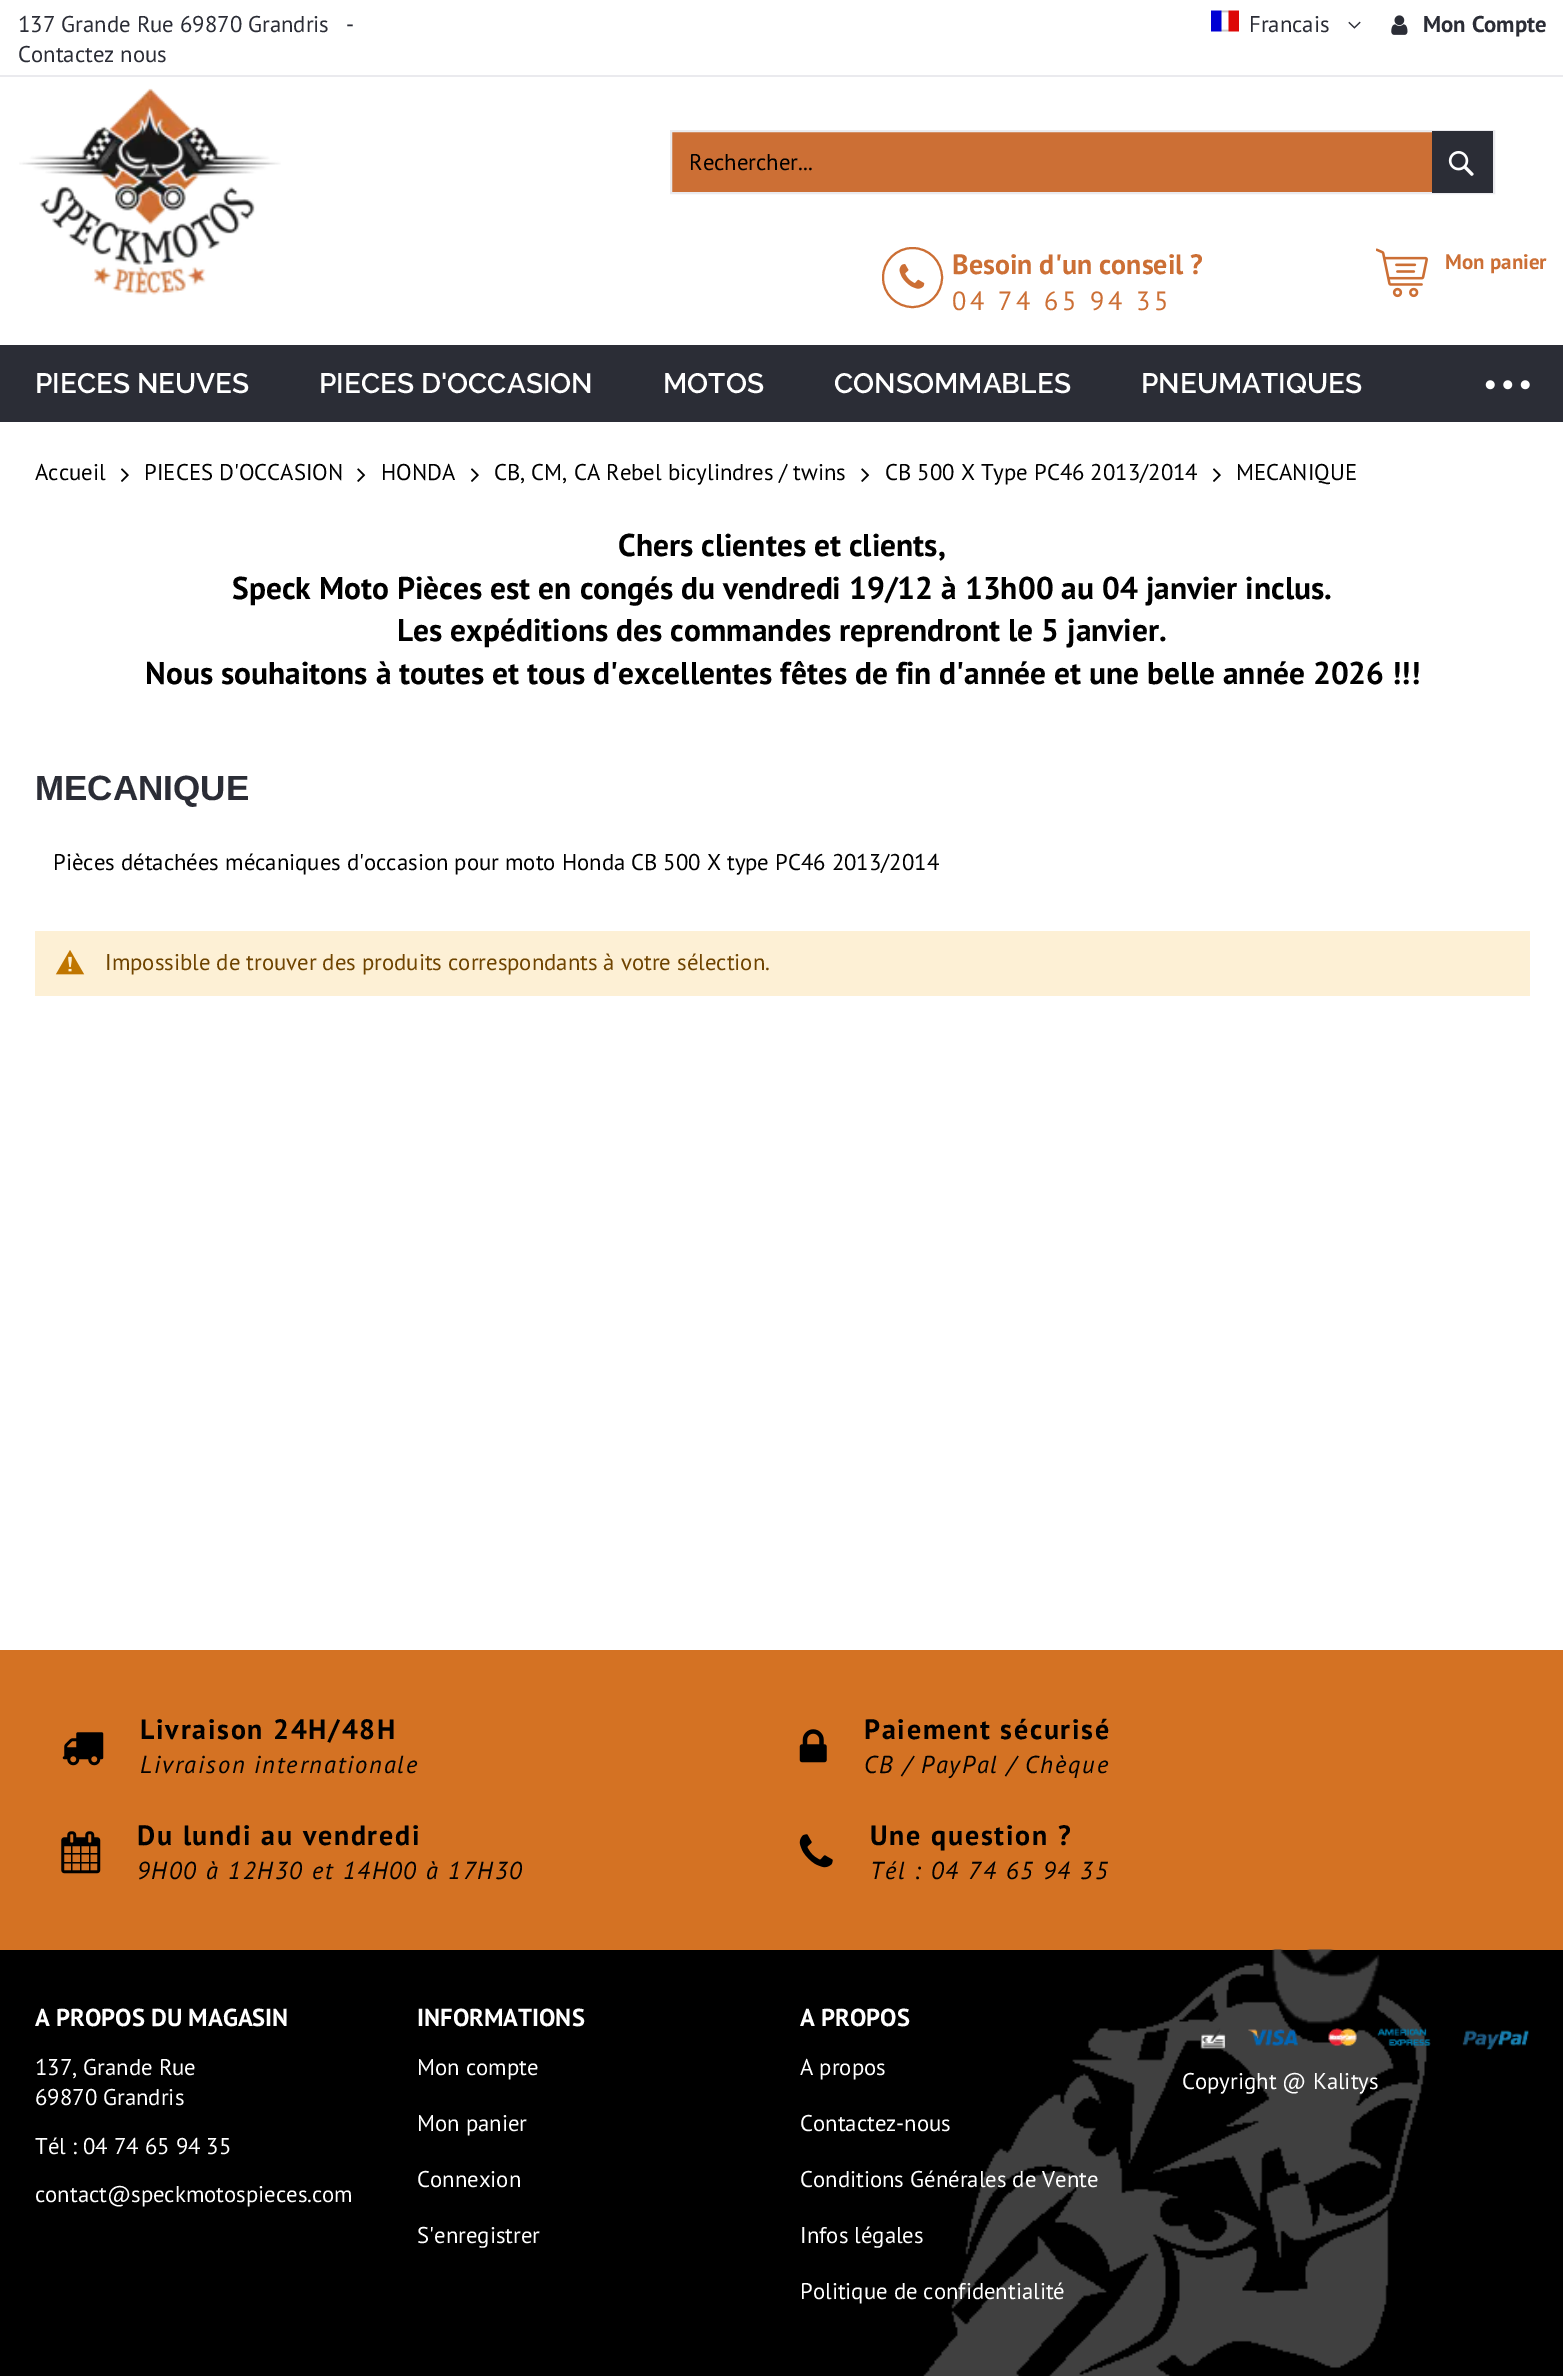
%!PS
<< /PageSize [1563 2376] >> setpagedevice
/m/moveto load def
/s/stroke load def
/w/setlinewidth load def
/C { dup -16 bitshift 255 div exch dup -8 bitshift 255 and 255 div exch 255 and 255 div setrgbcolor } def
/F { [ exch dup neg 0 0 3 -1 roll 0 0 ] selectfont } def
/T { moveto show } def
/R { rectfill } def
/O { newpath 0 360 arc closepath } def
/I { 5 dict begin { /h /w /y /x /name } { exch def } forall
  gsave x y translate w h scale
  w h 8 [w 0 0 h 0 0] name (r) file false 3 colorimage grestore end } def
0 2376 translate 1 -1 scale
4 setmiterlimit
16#FFFFFF C
0 0 1563 2376 R
16#EAEAEE C
0 75 1563 2 R
/PTSans-Regular 22.75 F
16#2B2D36 C
(137 Grande Rue 69870 Grandris) 18 32 T
(-) 346 32 T
(Contactez nous) 18 62 T
(1.rgb) 1211 10 28 22 I
(Francais) 1249 32 T
(2.rgb) 1348 21 13 8 I
(3.rgb) 1391 15 17 20 I
/PTSans-Bold 22.75 F
(Mon Compte) 1423 32 T
(4.rgb) 19 88 262 207 I
16#CC6F35 C
672 132 760 60 R
16#EAEAEE C
2 w
671 131 823 62 rectstroke
/PTSans-Regular 22.75 F
16#000000 C
(Rechercher...) 689 170 T
16#2B2D36 C
1432 131 61 62 R
(5.rgb) 1448 151 26 25 I
16#CC6F35 C
912.5 277.5 29.5 O s
(6.rgb) 899 264 26 25 I
/PTSans-Bold 28 F
(Besoin d'un conseil ?) 952 274 T
/PTSans-Regular 26.25 F
952 310 m 3.5 0 (04 74 65 94 35) ashow
(7.rgb) 1376 248 52 50 I
/PTSans-Bold 21 F
(Mon panier) 1445 269 T
16#2B2D36 C
0 345 1563 77 R
/Raleway-SemiBold 28 F
16#FFFFFF C
(PIECES NEUVES) 35 393 T
(PIECES D'OCCASION) 319 393 T
(MOTOS) 663 393 T
(CONSOMMABLES) 834 393 T
(PNEUMATIQUES) 1141 393 T
(8.rgb) 1485 380 10 10 I
(9.rgb) 1503 380 10 10 I
(8.rgb) 1520 380 10 10 I
/PTSans-Regular 22.75 F
16#000000 C
(Accueil) 35 480 T
(10.rgb) 121 468 8 14 I
(PIECES D'OCCASION) 144 480 T
(11.rgb) 357 468 9 14 I
(HONDA) 381 480 T
(10.rgb) 471 468 8 14 I
(CB, CM, CA Rebel bicylindres / twins) 494 480 T
(11.rgb) 861 468 9 14 I
(CB 500 X Type PC46 2013/2014) 885 480 T
(10.rgb) 1213 468 8 14 I
(MECANIQUE) 1236 480 T
/PTSans-Bold 31.5 F
(Chers clientes et clients,) 618 556 T
(Speck Moto Pièces est en congés du vendredi 19/12 à 13h00 au 04 janvier inclus.) 232 599 T
(Les expéditions des commandes reprendront le 5 janvier.) 397 641 T
(Nous souhaitons à toutes et tous d'excellentes fêtes de fin d'année et une belle année 2026 !!!) 145 684 T
/LiberationSans-Bold 35 F
16#2B2D36 C
(MECANIQUE) 35 800 T
/PTSans-Regular 22.75 F
16#000000 C
(Pièces détachées mécaniques d'occasion pour moto Honda CB 500 X type PC46 2013/2014) 53 870 T
16#FDF0D5 C
35 931 1495 65 R
(12.rgb) 55 950 30 25 I
16#6F4400 C
(Impossible de trouver des produits correspondants à votre sélection.) 105 970 T
16#D47223 C
0 1650 1563 300 R
(13.rgb) 62 1732 42 34 I
/PTSans-Bold 28 F
16#000000 C
140 1739 m 1.75 0 (Livraison 24H/48H) ashow
/PTSans-Italic 24.5 F
140 1773 m 1.75 0 (Livraison internationale) ashow
(14.rgb) 799 1729 28 34 I
/PTSans-Bold 28 F
864 1739 m 1.75 0 (Paiement sécurisé) ashow
/PTSans-Italic 24.5 F
864 1773 m 1.75 0 (CB / PayPal / Chèque) ashow
(15.rgb) 61 1831 40 43 I
/PTSans-Bold 28 F
137 1845 m 1.75 0 (Du lundi au vendredi) ashow
/PTSans-Italic 24.5 F
137 1879 m 1.75 0 (9H00 à 12H30 et 14H00 à 17H30) ashow
(16.rgb) 799 1834 34 34 I
/PTSans-Bold 28 F
870 1845 m 1.75 0 (Une question ?) ashow
/PTSans-Italic 24.5 F
870 1879 m 1.75 0 (Tél : 04 74 65 94 35) ashow
0 1950 1563 426 R
(17.rgb) 923 1949 504 427 I
/PTSans-Bold 24.5 F
16#FFFFFF C
(A PROPOS DU MAGASIN) 35 2026 T
/PTSans-Regular 22.75 F
(137, Grande Rue) 35 2075 T
(69870 Grandris) 35 2105 T
(Tél : 04 74 65 94 35) 35 2154 T
(contact@speckmotospieces.com) 35 2202 T
/PTSans-Bold 24.5 F
(INFORMATIONS) 417 2026 T
/PTSans-Regular 22.75 F
(Mon compte) 417 2075 T
(Mon panier) 417 2131 T
(Connexion) 417 2187 T
(S'enregistrer) 417 2243 T
/PTSans-Bold 24.5 F
(A PROPOS) 800 2026 T
/PTSans-Regular 22.75 F
(A propos) 800 2075 T
(Contactez-nous) 800 2131 T
(Conditions Générales de Vente) 800 2187 T
(Infos légales) 800 2243 T
(Politique de confidentialité) 800 2299 T
(18.rgb) 1200 2028 329 22 I
(Copyright @ Kalitys) 1182 2089 T
showpage
